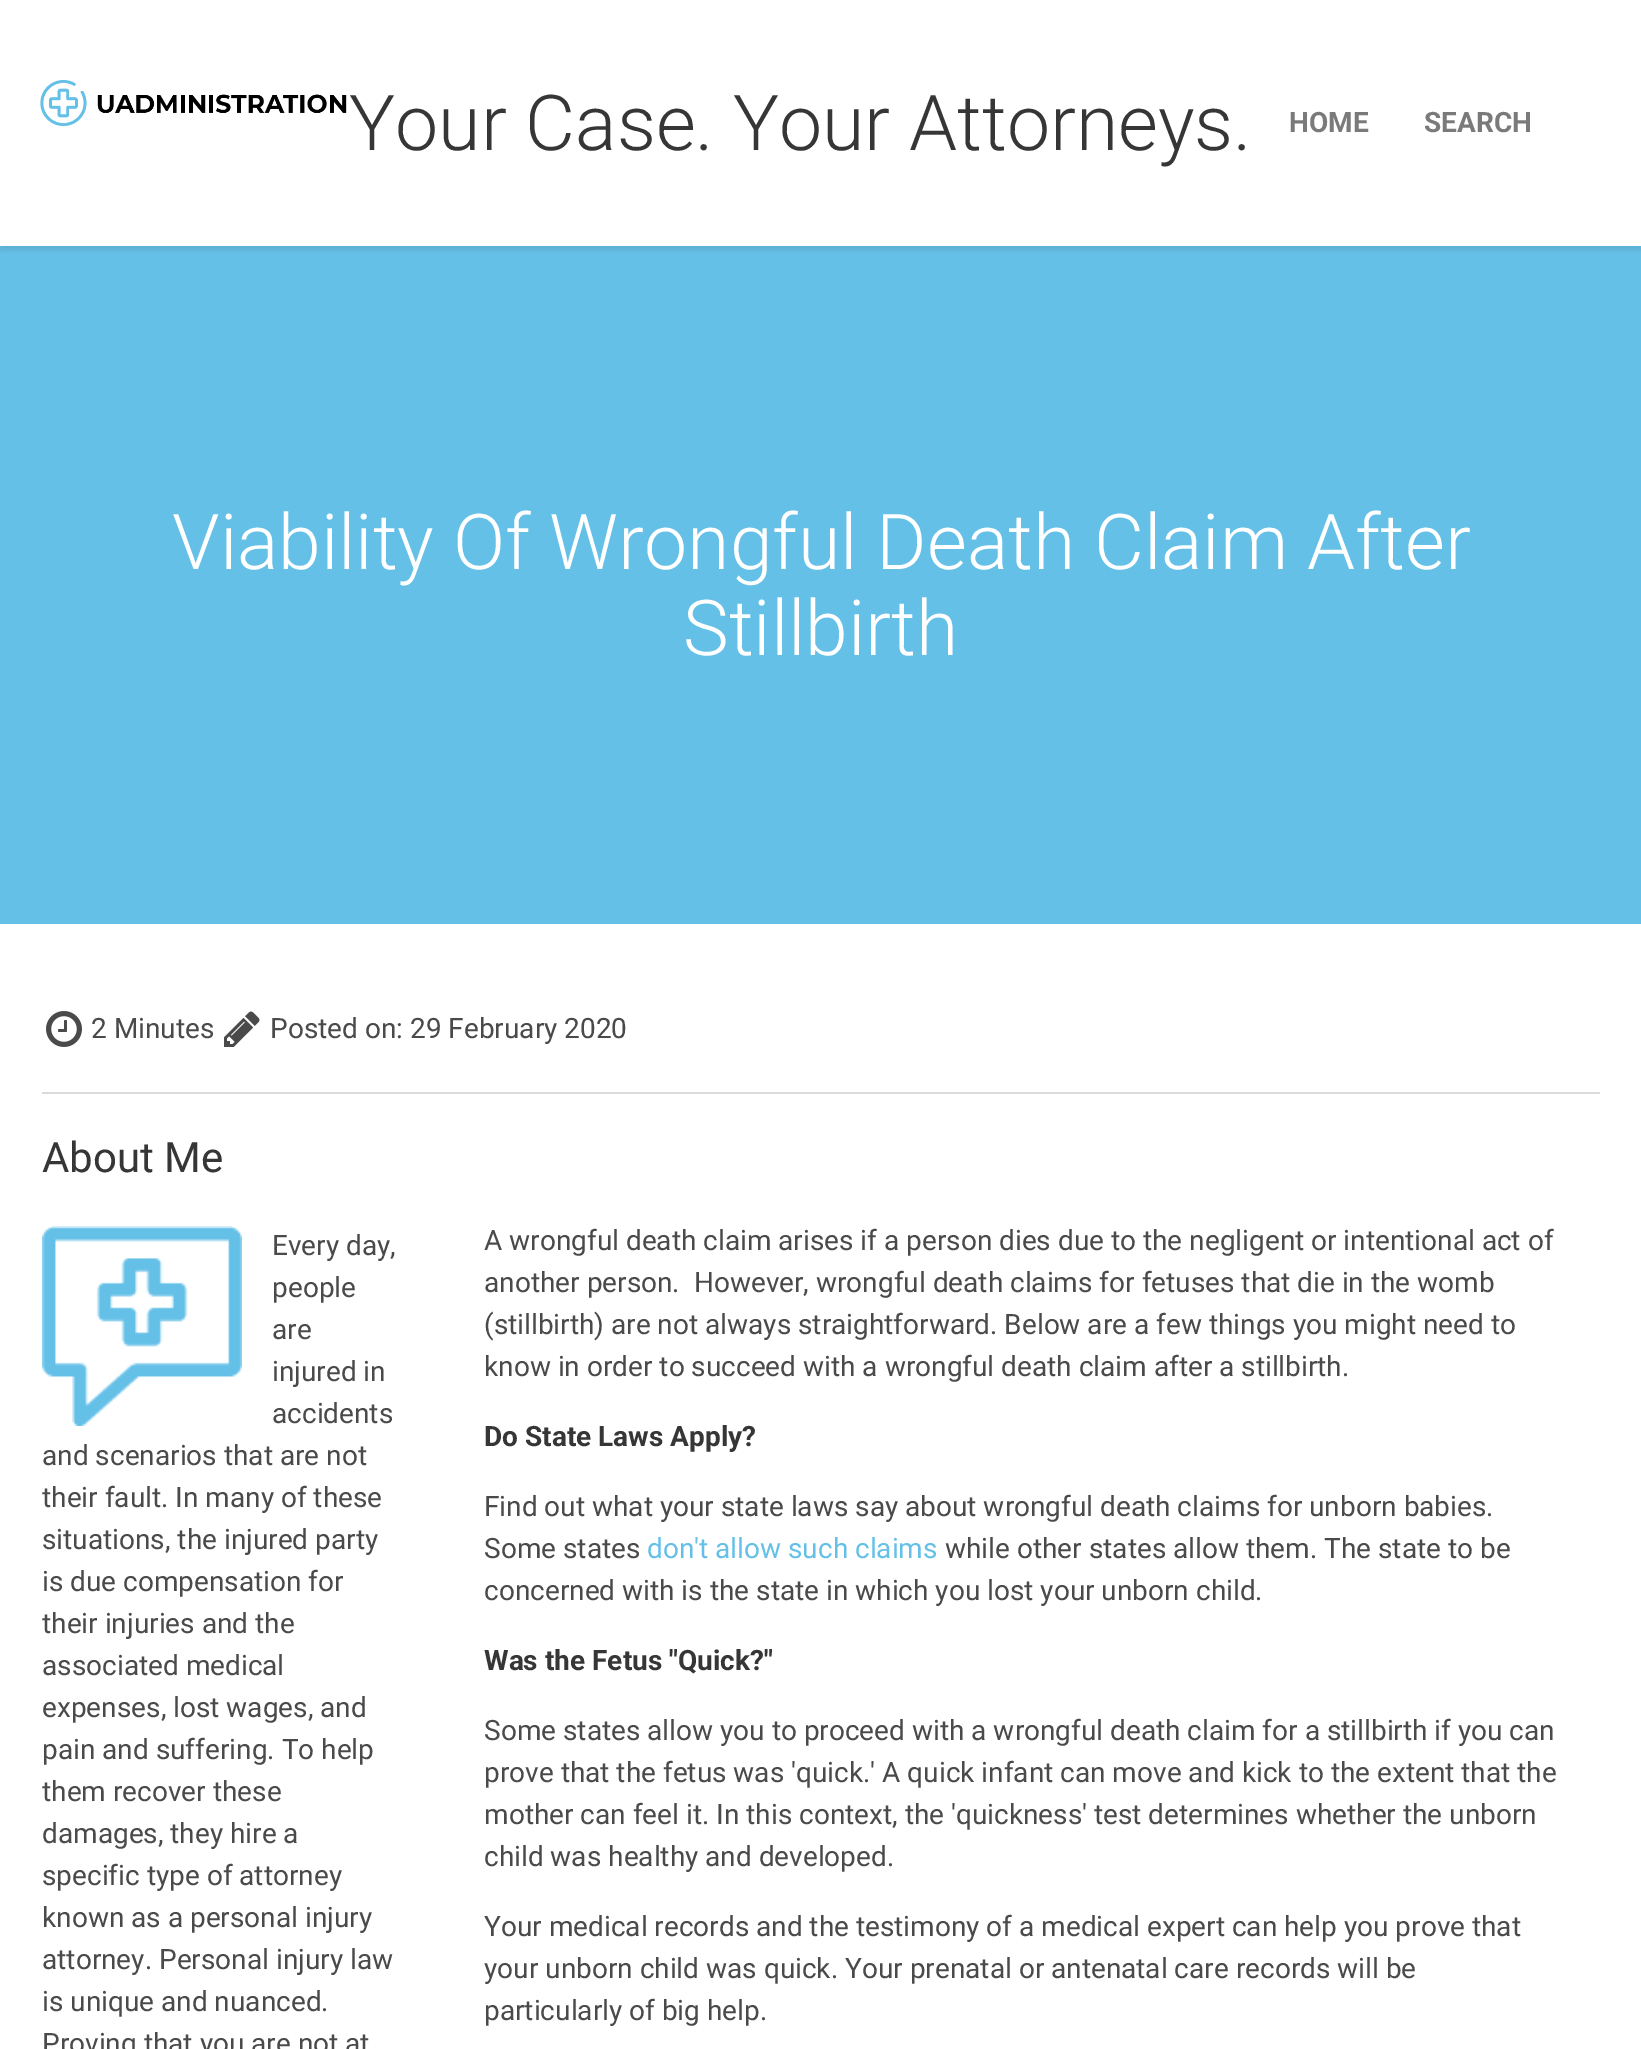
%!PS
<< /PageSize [1641 2049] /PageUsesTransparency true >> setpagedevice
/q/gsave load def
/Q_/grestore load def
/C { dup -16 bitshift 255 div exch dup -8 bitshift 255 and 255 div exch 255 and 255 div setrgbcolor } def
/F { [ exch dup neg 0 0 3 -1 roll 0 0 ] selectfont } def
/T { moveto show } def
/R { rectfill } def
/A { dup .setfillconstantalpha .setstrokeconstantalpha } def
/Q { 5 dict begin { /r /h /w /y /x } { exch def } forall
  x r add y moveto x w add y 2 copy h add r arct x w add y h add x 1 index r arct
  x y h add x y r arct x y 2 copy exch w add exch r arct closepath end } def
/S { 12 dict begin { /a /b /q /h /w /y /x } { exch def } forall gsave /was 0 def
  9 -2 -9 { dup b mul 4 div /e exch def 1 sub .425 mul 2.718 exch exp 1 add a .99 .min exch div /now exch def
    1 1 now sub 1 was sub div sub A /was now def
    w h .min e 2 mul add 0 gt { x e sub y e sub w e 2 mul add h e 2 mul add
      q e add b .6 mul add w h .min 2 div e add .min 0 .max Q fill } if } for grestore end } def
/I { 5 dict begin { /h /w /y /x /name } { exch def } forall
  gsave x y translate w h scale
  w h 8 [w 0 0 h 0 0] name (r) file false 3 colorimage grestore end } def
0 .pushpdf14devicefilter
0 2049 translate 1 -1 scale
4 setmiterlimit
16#FFFFFF C
0 0 1641 2049 R
16#65C0E8 C
0 246 1641 678 R
q
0 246 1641 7 rectclip
16#0A0A0A C
0 4 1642 246 0 3 .1 S
Q_
(1.rgb) 40 80 307 46 I
/Roboto-Light 77 F
16#363636 C
(Your Case. Your Attorneys.) 349 150 T
/Roboto-Bold 28 F
16#7A7A7A C
(HOME) 1289 132 T
(SEARCH) 1424 132 T
/Roboto-Light 77 F
16#FFFFFF C
(Viability Of Wrongful Death Claim After) 172 569 T
(Stillbirth) 683 655 T
(2.rgb) 46 1011 36 36 I
/Roboto-Regular 28 F
16#4A4A4A C
(2 Minutes) 91 1038 T
(3.rgb) 224 1011 36 36 I
(Posted on: 29 February 2020) 270 1038 T
16#DBDBDB C
42 1092 1558 2 R
/Roboto-Regular 42 F
16#363636 C
(About Me) 42 1172 T
(4.rgb) 42 1226 200 200 I
/Roboto-Regular 28 F
16#4A4A4A C
(Every day,) 272 1255 T
(people) 272 1297 T
(are) 272 1339 T
(injured in) 272 1381 T
(accidents) 272 1423 T
(and scenarios that are not) 42 1465 T
(their fault. In many of these) 42 1507 T
(situations, the injured party) 42 1549 T
(is due compensation for) 42 1591 T
(their injuries and the) 42 1633 T
(associated medical) 42 1675 T
(expenses, lost wages, and) 42 1717 T
(pain and suffering. To help) 42 1759 T
(them recover these) 42 1801 T
(damages, they hire a) 42 1843 T
(specific type of attorney) 42 1885 T
(known as a personal injury) 42 1927 T
(attorney. Personal injury law) 42 1969 T
(is unique and nuanced.) 42 2011 T
(Proving that you are not at) 42 2053 T
(A wrongful death claim arises if a person dies due to the negligent or intentional act of) 484 1250 T
(another person.  However, wrongful death claims for fetuses that die in the womb) 484 1292 T
(\(stillbirth\) are not always straightforward. Below are a few things you might need to) 484 1334 T
(know in order to succeed with a wrongful death claim after a stillbirth.) 484 1376 T
/Roboto-Bold 28 F
16#363636 C
(Do State Laws Apply?) 484 1446 T
/Roboto-Regular 28 F
16#4A4A4A C
(Find out what your state laws say about wrongful death claims for unborn babies.) 484 1516 T
(Some states) 484 1558 T
16#65C0E8 C
(don't allow such claims) 647 1558 T
16#4A4A4A C
(while other states allow them. The state to be) 945 1558 T
(concerned with is the state in which you lost your unborn child.) 484 1600 T
/Roboto-Bold 28 F
16#363636 C
(Was the Fetus "Quick?") 484 1670 T
/Roboto-Regular 28 F
16#4A4A4A C
(Some states allow you to proceed with a wrongful death claim for a stillbirth if you can) 484 1740 T
(prove that the fetus was 'quick.' A quick infant can move and kick to the extent that the) 484 1782 T
(mother can feel it. In this context, the 'quickness' test determines whether the unborn) 484 1824 T
(child was healthy and developed.) 484 1866 T
(Your medical records and the testimony of a medical expert can help you prove that) 484 1936 T
(your unborn child was quick. Your prenatal or antenatal care records will be) 484 1978 T
(particularly of big help.) 484 2020 T
.poppdf14devicefilter showpage
